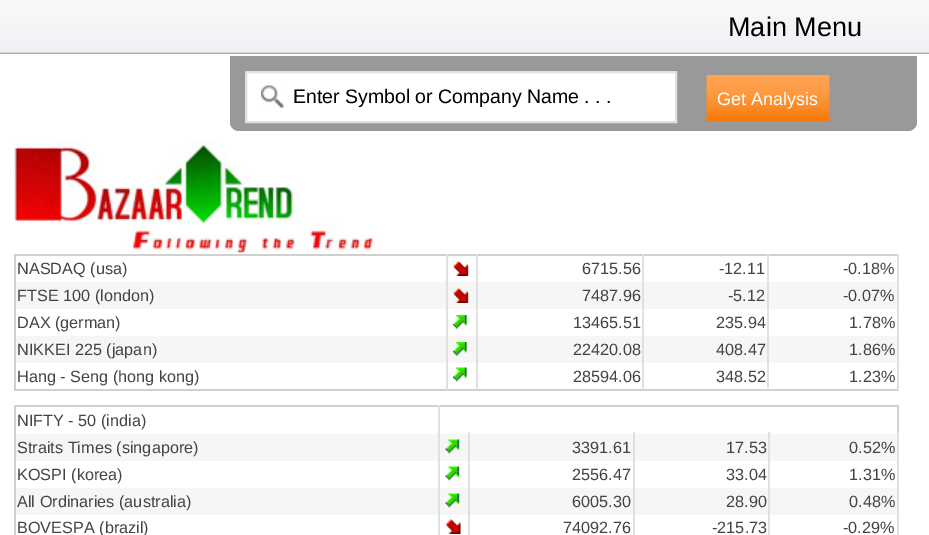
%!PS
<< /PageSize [929 535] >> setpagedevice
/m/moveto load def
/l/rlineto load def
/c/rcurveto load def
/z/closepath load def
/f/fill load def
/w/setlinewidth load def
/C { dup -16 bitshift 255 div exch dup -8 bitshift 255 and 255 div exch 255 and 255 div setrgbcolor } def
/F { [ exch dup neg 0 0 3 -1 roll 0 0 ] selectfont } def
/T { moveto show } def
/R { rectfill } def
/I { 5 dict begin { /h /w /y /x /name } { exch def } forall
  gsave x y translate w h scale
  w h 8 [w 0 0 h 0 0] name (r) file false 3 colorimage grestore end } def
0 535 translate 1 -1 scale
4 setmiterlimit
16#FFFFFF C
0 0 929 535 R
(1.rgb) 0 0 929 54 I
/LiberationSans-Regular 27 F
16#000000 C
(Main Menu) 728 36 T
16#999999 C
230 56 m 687 0 l 0 66 l 0 5 -4 9 -9 9 c -669 0 l -5 0 -9 -4 -9 -9 c z f
16#FFFFFF C
247 73 428 48 R
(2.rgb) 261 85 23 23 I
16#E0E0E0 C
2 w
246 72 430 50 rectstroke
/LiberationSans-Regular 19.5 F
16#000000 C
(Enter Symbol or Company Name . . .) 293 103 T
(3.rgb) 706 75 124 47 I
/LiberationSans-Regular 18 F
16#FFFFFF C
(Get Analysis) 717 105 T
(4.rgb) 13 139 364 115 I
16#D0D0D0 C
14 254 885 2 R
14 389 885 2 R
14 254 2 136 R
/LiberationSans-Regular 16.25 F
16#444444 C
(NASDAQ \(usa\)) 17 274 T
(5.rgb) 453 261 16 15 I
(6715.56) 582 274 T
(-12.11) 719 274 T
(-0.18%) 843 274 T
16#F7F6F6 C
16 282 881 27 R
16#444444 C
(FTSE 100 \(london\)) 17 301 T
(6.rgb) 453 288 16 15 I
(7487.96) 582 301 T
(-5.12) 728 301 T
(-0.07%) 843 301 T
(DAX \(german\)) 17 328 T
(7.rgb) 453 315 14 14 I
(13465.51) 573 328 T
(235.94) 716 328 T
(1.78%) 849 328 T
16#F7F6F6 C
16 336 881 27 R
16#444444 C
(NIKKEI 225 \(japan\)) 17 355 T
(8.rgb) 453 342 14 14 I
(22420.08) 573 355 T
(408.47) 716 355 T
(1.86%) 849 355 T
16#E0E0E0 C
446 254 2 136 R
16#444444 C
(Hang - Seng \(hong kong\)) 17 382 T
16#E0E0E0 C
476 254 2 136 R
(9.rgb) 453 367 14 15 I
642 254 2 136 R
16#444444 C
(28594.06) 573 382 T
16#E0E0E0 C
767 254 2 136 R
16#444444 C
(348.52) 716 382 T
16#E0E0E0 C
897 254 2 136 R
16#444444 C
(1.23%) 849 382 T
16#D0D0D0 C
14 405 885 2 R
897 405 2 27 R
14 405 2 130 R
16#444444 C
(NIFTY - 50 \(india\)) 17 426 T
16#F7F6F6 C
16 434 881 27 R
16#444444 C
(Straits Times \(singapore\)) 17 453 T
(10.rgb) 445 439 15 15 I
(3391.61) 572 453 T
(17.53) 726 453 T
(0.52%) 849 453 T
(KOSPI \(korea\)) 17 480 T
(11.rgb) 445 466 15 15 I
(2556.47) 572 480 T
(33.04) 726 480 T
(1.31%) 849 480 T
16#F7F6F6 C
16 488 881 27 R
16#444444 C
(All Ordinaries \(australia\)) 17 507 T
(10.rgb) 445 493 15 15 I
(6005.30) 572 507 T
(28.90) 726 507 T
(0.48%) 849 507 T
16#E0E0E0 C
438 405 2 130 R
16#444444 C
(BOVESPA \(brazil\)) 17 533 T
16#E0E0E0 C
468 432 2 103 R
(12.rgb) 445 519 16 15 I
633 432 2 103 R
16#444444 C
(74092.76) 563 533 T
16#E0E0E0 C
768 432 2 103 R
16#444444 C
(-215.73) 712 533 T
16#E0E0E0 C
897 432 2 103 R
16#444444 C
(-0.29%) 843 533 T
showpage
